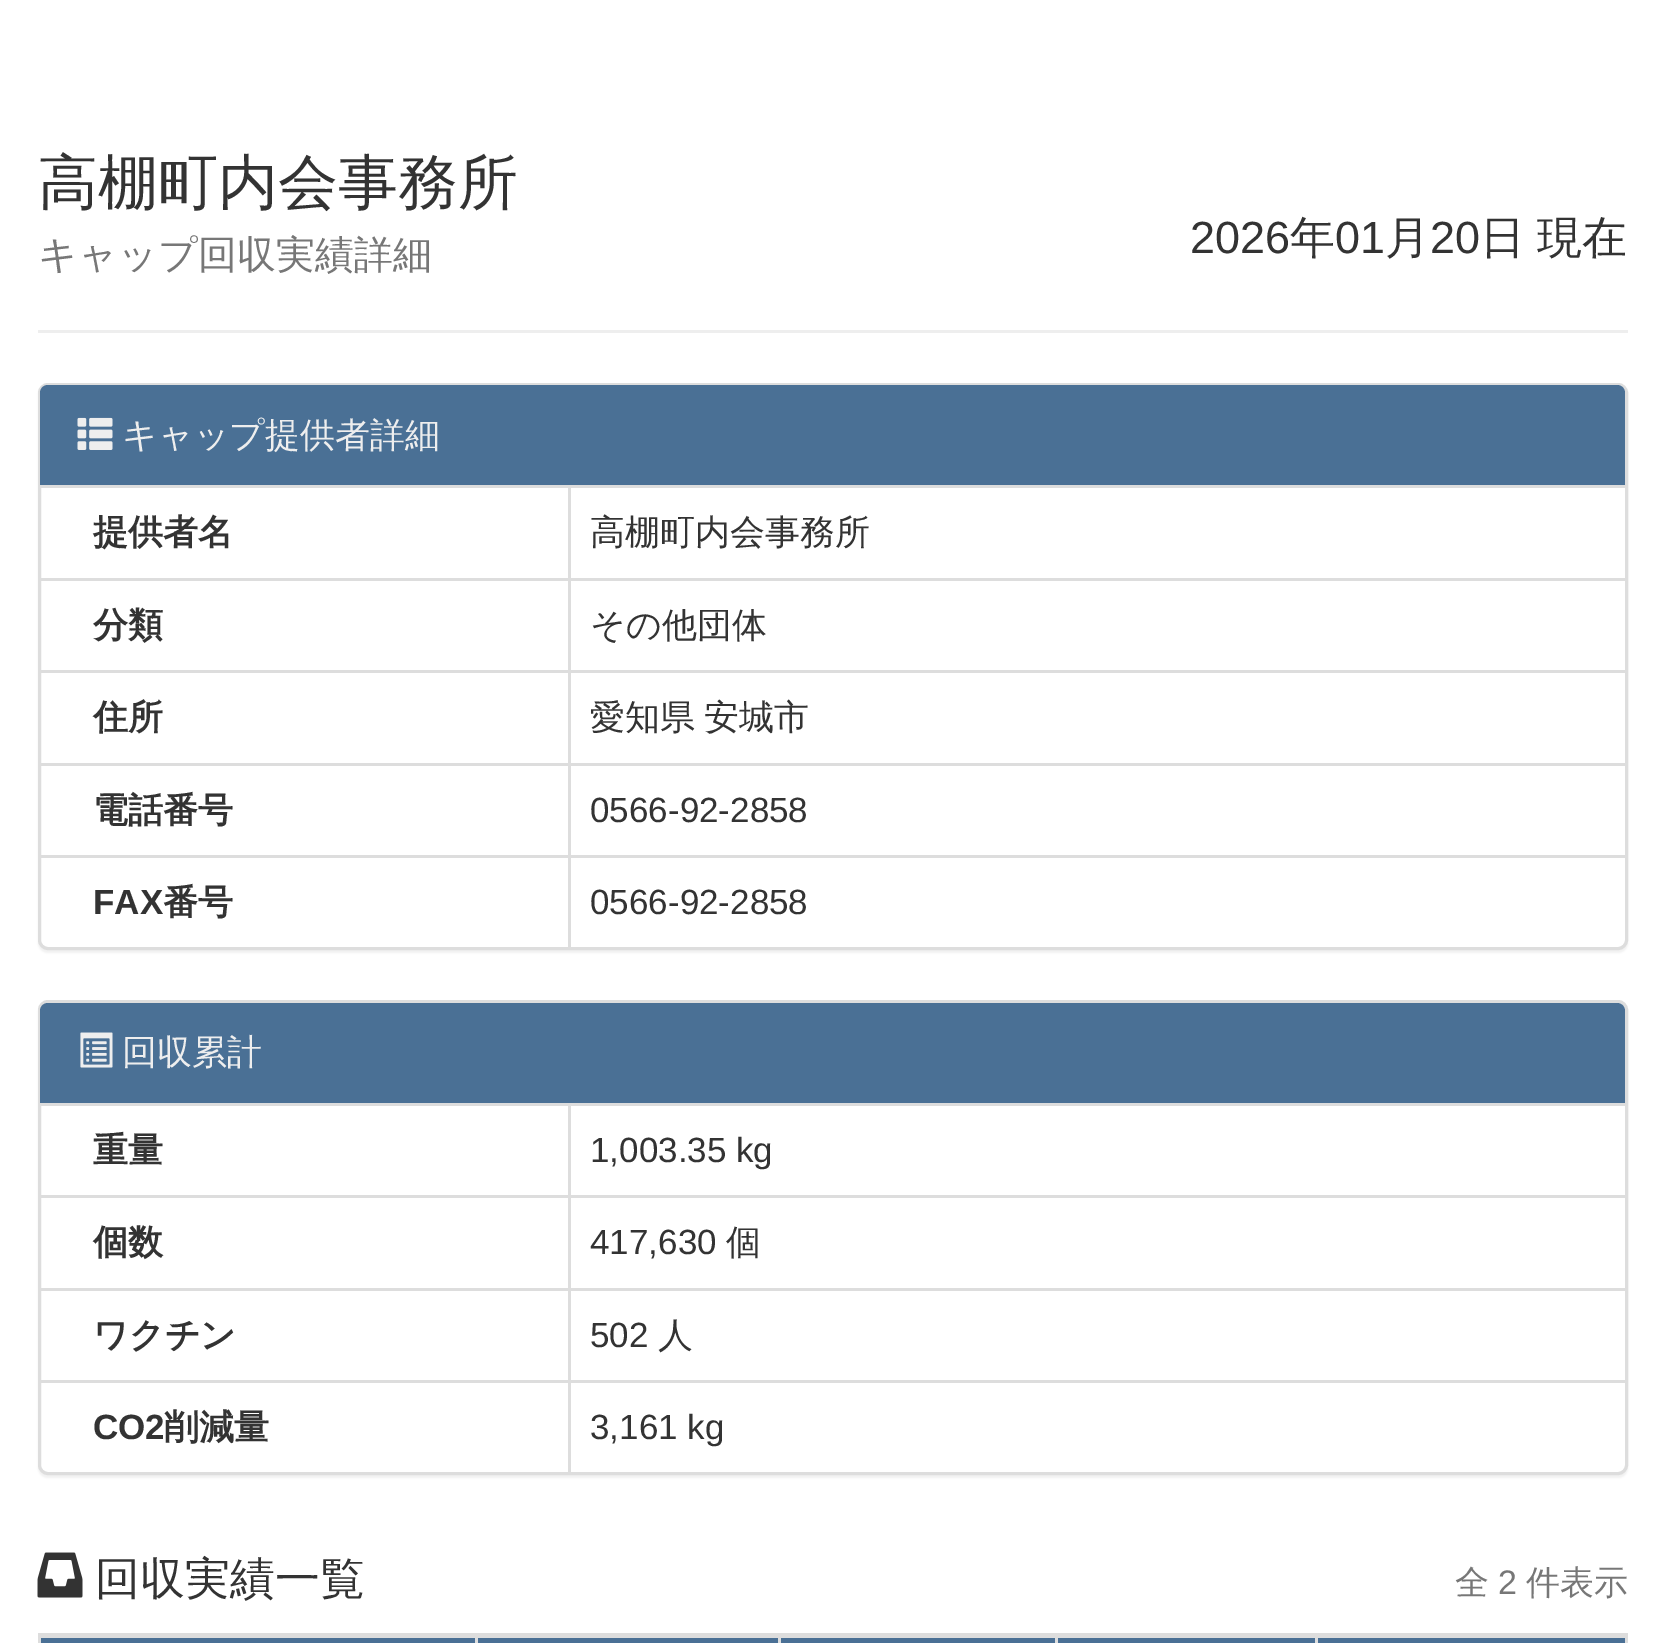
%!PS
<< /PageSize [1663 1643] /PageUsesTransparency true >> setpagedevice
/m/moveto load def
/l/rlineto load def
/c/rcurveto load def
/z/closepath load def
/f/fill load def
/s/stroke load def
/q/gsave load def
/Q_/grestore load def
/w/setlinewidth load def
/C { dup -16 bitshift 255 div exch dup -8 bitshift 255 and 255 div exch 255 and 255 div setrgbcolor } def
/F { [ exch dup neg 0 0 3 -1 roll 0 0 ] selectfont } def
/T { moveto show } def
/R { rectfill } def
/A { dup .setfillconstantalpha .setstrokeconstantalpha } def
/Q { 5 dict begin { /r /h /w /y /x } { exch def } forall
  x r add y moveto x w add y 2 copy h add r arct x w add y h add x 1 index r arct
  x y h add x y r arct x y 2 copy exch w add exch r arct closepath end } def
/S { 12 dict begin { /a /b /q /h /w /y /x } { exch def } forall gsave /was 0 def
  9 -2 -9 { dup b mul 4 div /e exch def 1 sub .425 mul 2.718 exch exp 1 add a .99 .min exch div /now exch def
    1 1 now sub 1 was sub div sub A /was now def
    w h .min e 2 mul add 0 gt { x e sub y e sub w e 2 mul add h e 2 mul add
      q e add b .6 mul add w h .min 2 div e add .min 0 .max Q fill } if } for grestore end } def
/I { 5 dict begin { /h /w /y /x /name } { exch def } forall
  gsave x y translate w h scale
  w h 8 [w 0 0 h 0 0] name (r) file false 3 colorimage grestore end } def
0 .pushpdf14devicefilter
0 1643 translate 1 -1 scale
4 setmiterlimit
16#FFFFFF C
0 0 1663 1643 R
16#EEEEEE C
38 330 1590 3 R
/WenQuanYiZenHei-Medium 60 F
16#333333 C
(高棚町内会事務所) 38 203 T
/WenQuanYiZenHei-Medium 39 F
16#777777 C
(キャップ回収実績詳細) 38 268 T
/LiberationSans-Regular 45 F
16#333333 C
(2026) 1190 253 T
/WenQuanYiZenHei-Medium 45 F
(年) 1290 253 T
/LiberationSans-Regular 45 F
(01) 1335 253 T
/WenQuanYiZenHei-Medium 45 F
(月) 1385 253 T
/LiberationSans-Regular 45 F
(20) 1430 253 T
/WenQuanYiZenHei-Medium 45 F
1480 253 m -1 0 32 (日 現在) widthshow
16#000000 C
38 385 1590 568 10 1 .05 S
16#FFFFFF C
39.5 384.5 1587 564 8.5 Q q f Q_
16#DDDDDD C
3 w
s
16#4A7095 C
48 385 m 1569 0 l 4.5 0 8 3.5 8 8 c 0 95 l -1585 0 l 0 -95 l 0 -4.5 3.5 -8 8 -8 c z f
16#DDDDDD C
40 485 1585 3 R
(1.rgb) 77 417 36 33 I
/WenQuanYiZenHei-Medium 35 F
16#EEEEEE C
(キャップ提供者詳細) 122 447 T
/WenQuanYiZenHei-Bold 35 F
16#333333 C
(提供者名) 93 544 T
16#DDDDDD C
568 578 1060 3 R
568 670 1060 3 R
568 763 1060 3 R
568 855 1060 3 R
568 855 3 93 R
40 855 530 3 R
568 763 3 95 R
40 763 530 3 R
568 670 3 95 R
40 670 530 3 R
568 578 3 95 R
40 578 530 3 R
568 485 3 95 R
/WenQuanYiZenHei-Medium 35 F
16#333333 C
(高棚町内会事務所) 590 544 T
/WenQuanYiZenHei-Bold 35 F
(分類) 93 637 T
/WenQuanYiZenHei-Medium 35 F
(その他団体) 590 637 T
/WenQuanYiZenHei-Bold 35 F
(住所) 93 729 T
/WenQuanYiZenHei-Medium 35 F
590 729 m -1 0 32 (愛知県 安城市) widthshow
/WenQuanYiZenHei-Bold 35 F
(電話番号) 93 822 T
/LiberationSans-Regular 35 F
(0566-92-2858) 590 822 T
/LiberationSans-Bold 35 F
(FAX) 93 914 T
/WenQuanYiZenHei-Bold 35 F
(番号) 163 914 T
/LiberationSans-Regular 35 F
(0566-92-2858) 590 914 T
16#000000 C
38 1003 1590 475 10 1 .05 S
16#FFFFFF C
39.5 1001.5 1587 472 8.5 Q q f Q_
16#DDDDDD C
s
16#4A7095 C
48 1003 m 1569 0 l 4.5 0 8 3.5 8 8 c 0 94 l -1585 0 l 0 -94 l 0 -4.5 3.5 -8 8 -8 c z f
16#DDDDDD C
40 1103 1585 3 R
(2.rgb) 80 1032 33 36 I
/WenQuanYiZenHei-Medium 35 F
16#EEEEEE C
(回収累計) 122 1064 T
/WenQuanYiZenHei-Bold 35 F
16#333333 C
(重量) 93 1162 T
16#DDDDDD C
568 1195 1060 3 R
568 1288 1060 3 R
568 1380 1060 3 R
568 1380 3 93 R
40 1380 530 3 R
568 1288 3 95 R
40 1288 530 3 R
568 1195 3 95 R
40 1195 530 3 R
568 1103 3 95 R
/LiberationSans-Regular 35 F
16#333333 C
(1,003.35 kg) 590 1162 T
/WenQuanYiZenHei-Bold 35 F
(個数) 93 1254 T
/LiberationSans-Regular 35 F
(417,630) 590 1254 T
/WenQuanYiZenHei-Medium 35 F
(個) 726 1254 T
/WenQuanYiZenHei-Bold 35 F
(ワクチン) 93 1347 T
/LiberationSans-Regular 35 F
(502) 590 1347 T
/WenQuanYiZenHei-Medium 35 F
(人) 658 1347 T
/LiberationSans-Bold 35 F
(CO2) 93 1439 T
/WenQuanYiZenHei-Bold 35 F
(削減量) 164 1439 T
/LiberationSans-Regular 35 F
(3,161 kg) 590 1439 T
(3.rgb) 37 1552 46 46 I
/WenQuanYiZenHei-Medium 45 F
(回収実績一覧) 95 1594 T
/WenQuanYiZenHei-Medium 34 F
16#777777 C
(全) 1455 1594 T
/LiberationSans-Regular 34 F
(2) 1498 1594 T
/WenQuanYiZenHei-Medium 34 F
(件表示) 1526 1594 T
16#4A7095 C
40 1638 1588 5 R
16#DDDDDD C
1625 1633 3 10 R
38 1633 3 10 R
475 1633 3 10 R
778 1633 3 10 R
1055 1633 3 10 R
1315 1633 3 10 R
38 1633 1590 5 R
.poppdf14devicefilter showpage
